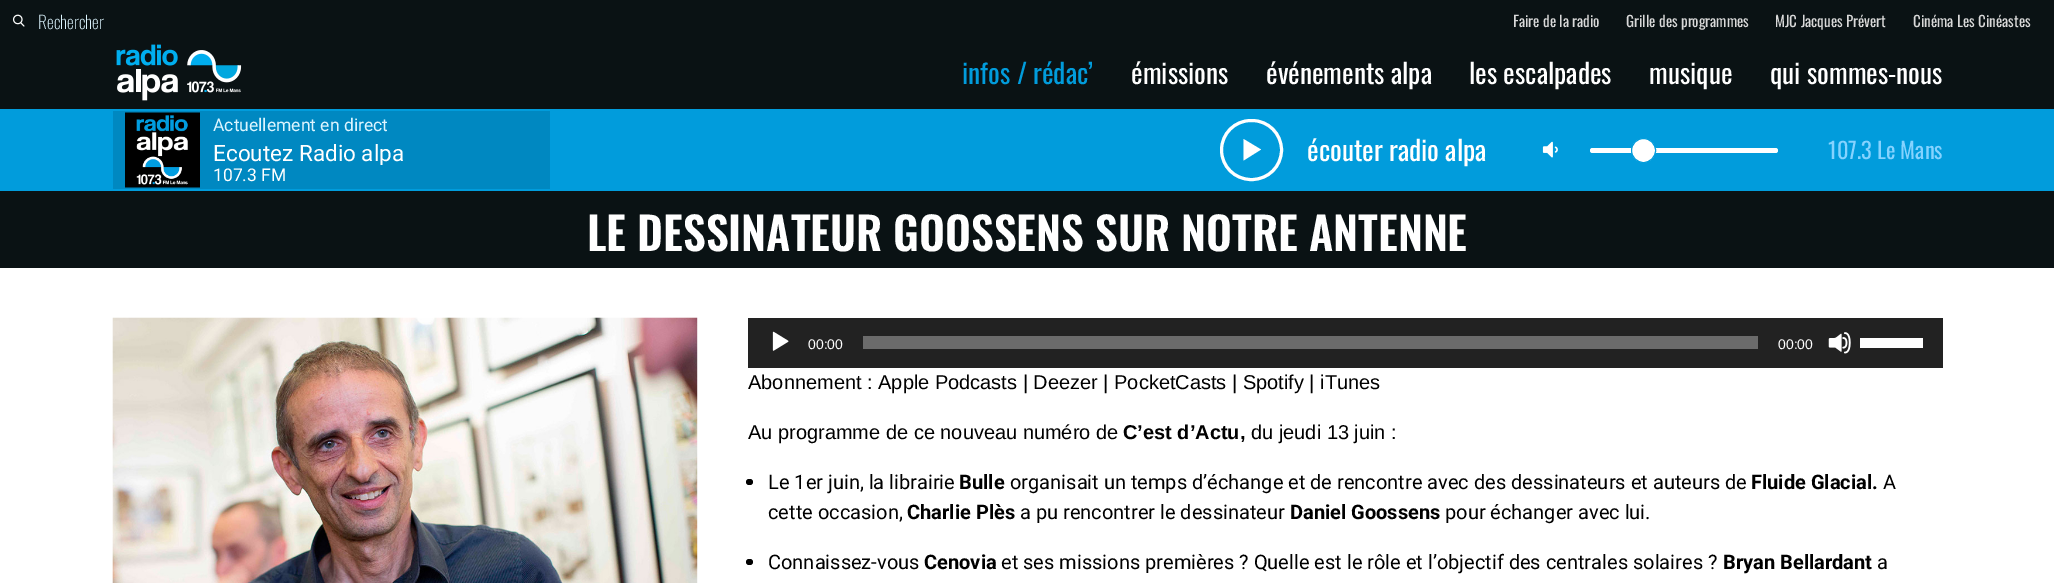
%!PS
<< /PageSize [2054 583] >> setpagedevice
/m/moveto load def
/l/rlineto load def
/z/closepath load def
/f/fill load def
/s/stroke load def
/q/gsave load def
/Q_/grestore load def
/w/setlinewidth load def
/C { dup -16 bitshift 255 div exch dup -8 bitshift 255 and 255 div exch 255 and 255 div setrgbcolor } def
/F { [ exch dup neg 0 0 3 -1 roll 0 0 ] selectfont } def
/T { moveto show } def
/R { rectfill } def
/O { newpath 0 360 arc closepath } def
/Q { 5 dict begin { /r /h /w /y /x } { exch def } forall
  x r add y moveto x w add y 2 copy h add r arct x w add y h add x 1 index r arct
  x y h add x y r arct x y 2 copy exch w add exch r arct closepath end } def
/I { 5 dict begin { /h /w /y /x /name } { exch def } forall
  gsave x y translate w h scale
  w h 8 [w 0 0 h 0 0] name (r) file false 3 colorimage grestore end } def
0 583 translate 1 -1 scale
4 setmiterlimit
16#FFFFFF C
0 0 2054 583 R
16#0A1214 C
375 0 1679 41 R
0 0 375 41 R
(1.rgb) 12 14 13 13 I
/Oswald-ExtraLight 17.5 F
16#DDF5FF C
(Rechercher) 38 29 T
/Oswald-Regular 15 F
16#D9D9D9 C
(Faire de la radio) 1513 27 T
(Grille des programmes) 1626 27 T
(MJC Jacques Prévert) 1775 27 T
(Cinéma Les Cinéastes) 1913 27 T
16#0A1214 C
0 41 2054 68 R
(2.rgb) 116 44 126 57 I
/Oswald-Regular 27.5 F
16#019CDC C
(infos / rédac’) 962 84 T
16#FFFFFF C
(émissions) 1131 84 T
(événements alpa) 1266 84 T
(les escalpades) 1469 84 T
(musique) 1649 84 T
(qui sommes-nous) 1770 84 T
16#019CDC C
0 109 2054 82 R
16#0088C1 C
113 111 437 78 R
(3.rgb) 125 112 75 76 I
/Roboto-Regular 17.5 F
16#DDF5FF C
(Actuellement en direct) 213 131 T
q
213 143 325 22 rectclip
/Roboto-Regular 22.5 F
16#FFFFFF C
(Ecoutez Radio alpa) 213 161 T
Q_
16#FFFFFF C
(107.3 FM) 213 181 T
3 w
1221.5 120.5 60 59 29.5 Q s
1243.5 139 m 17.5 10.5 l -17.5 11 l z f
/Oswald-Regular 27.5 F
(écouter radio alpa) 1307 161 T
(4.rgb) 1542 141 16 17 I
1590 148 188 5 2.5 Q f
1643.5 150.5 12 O q f Q_
16#019CDC C
1 w
s
/Oswald-Regular 22.5 F
16#85D3FF C
(107.3 Le Mans) 1828 159 T
16#0A1214 C
0 191 2054 77 R
/Oswald-SemiBold 45 F
16#FFFFFF C
(LE DESSINATEUR GOOSSENS SUR NOTRE ANTENNE) 587 251 T
(5.rgb) 112 317 586 266 I
16#222222 C
748 318 1195 50 R
(6.rgb) 772 331 17 20 I
/LiberationSans-Regular 14 F
16#FFFFFF C
(00:00) 808 349 T
16#6B6B6B C
863 336 895 13 R
16#FFFFFF C
(00:00) 1778 349 T
(7.rgb) 1828 332 23 22 I
1860 338 63 10 R
/LiberationSans-Regular 20 F
16#000000 C
(Abonnement : Apple Podcasts | Deezer | PocketCasts | Spotify | iTunes) 748 389 T
(Au programme de ce nouveau numéro de) 748 439 T
/LiberationSans-Bold 20 F
(C’est d’Actu,) 1123 439 T
/LiberationSans-Regular 20 F
(du jeudi 13 juin :) 1251 439 T
746 479 7 6 3 Q f
/Roboto-Regular 20 F
(Le 1er juin, la librairie) 768 489 T
/Roboto-Bold 20 F
(Bulle) 959 489 T
/Roboto-Regular 20 F
(organisait un temps d’échange et de rencontre avec des dessinateurs et auteurs de) 1010 489 T
/Roboto-Bold 20 F
(Fluide Glacial.) 1751 489 T
/Roboto-Regular 20 F
(A) 1883 489 T
(cette occasion,) 768 519 T
/Roboto-Bold 20 F
(Charlie Plès) 907 519 T
/Roboto-Regular 20 F
(a pu rencontrer le dessinateur) 1020 519 T
/Roboto-Bold 20 F
(Daniel Goossens) 1290 519 T
/Roboto-Regular 20 F
(pour échanger avec lui.) 1445 519 T
746 559 7 6 3 Q f
(Connaissez-vous) 768 569 T
/Roboto-Bold 20 F
(Cenovia) 924 569 T
/Roboto-Regular 20 F
(et ses missions premières ? Quelle est le rôle et l’objectif des centrales solaires ?) 1001 569 T
/Roboto-Bold 20 F
(Bryan Bellardant) 1723 569 T
/Roboto-Regular 20 F
(a) 1877 569 T
showpage
